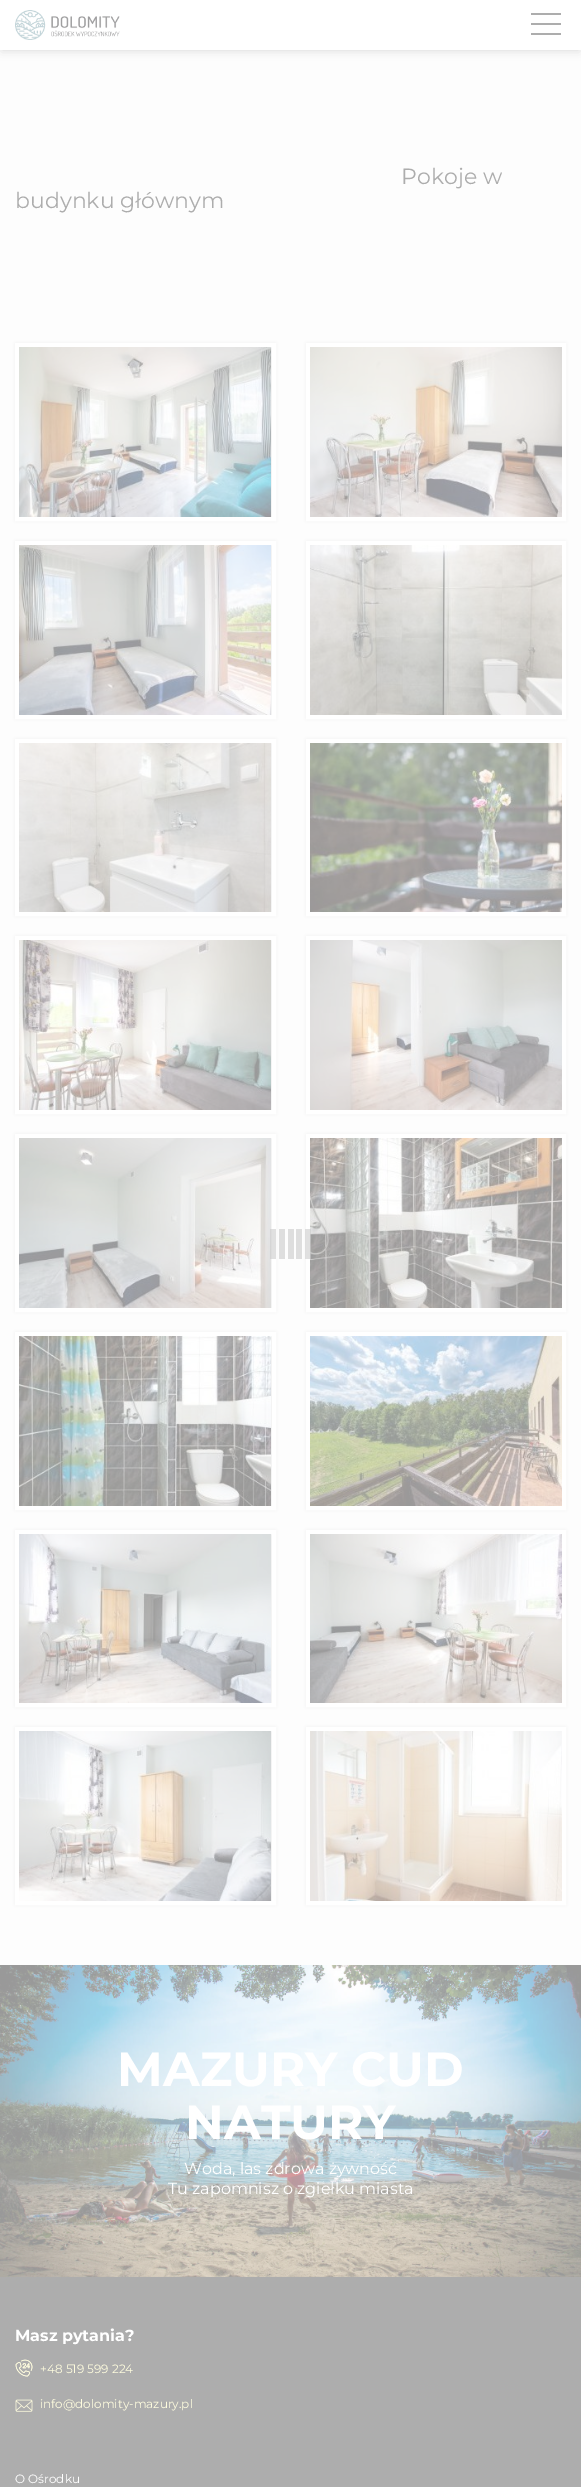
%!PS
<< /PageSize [581 2487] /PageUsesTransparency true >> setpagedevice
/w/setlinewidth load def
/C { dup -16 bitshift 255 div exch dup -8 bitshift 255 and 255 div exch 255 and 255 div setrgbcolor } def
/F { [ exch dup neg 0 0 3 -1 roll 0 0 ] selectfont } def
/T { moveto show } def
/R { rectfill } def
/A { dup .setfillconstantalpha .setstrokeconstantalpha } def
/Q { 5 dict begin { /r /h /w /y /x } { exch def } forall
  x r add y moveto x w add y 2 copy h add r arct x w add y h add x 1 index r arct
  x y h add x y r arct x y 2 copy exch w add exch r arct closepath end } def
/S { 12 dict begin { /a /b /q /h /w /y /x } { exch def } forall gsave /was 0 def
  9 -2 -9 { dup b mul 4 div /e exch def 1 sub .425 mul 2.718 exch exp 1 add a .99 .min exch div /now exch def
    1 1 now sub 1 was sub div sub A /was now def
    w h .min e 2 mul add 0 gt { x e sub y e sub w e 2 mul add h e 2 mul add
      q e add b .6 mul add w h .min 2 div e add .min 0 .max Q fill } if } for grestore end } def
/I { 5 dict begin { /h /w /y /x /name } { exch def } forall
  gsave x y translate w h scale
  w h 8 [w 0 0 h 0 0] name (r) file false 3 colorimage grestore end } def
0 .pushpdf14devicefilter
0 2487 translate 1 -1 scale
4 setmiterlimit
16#FDFDFD C
0 0 581 2487 R
16#999999 C
2 4 577 46 0 5 .41 S
16#FFFFFF C
0 0 581 50 R
(1.rgb) 15 10 105 30 I
16#ADADAD C
531 23 30 2 R
531 13 30 2 R
531 33 30 2 R
/Montserrat-Regular 22 F
(Pokoje w) 401 184 T
(budynku głównym) 15 208 T
16#999999 C
15 343 261 178 0 2.5 .1 S
16#FFFFFF C
4 w
17 345 257 174 rectstroke
(2.rgb) 19 347 252 170 I
16#999999 C
306 343 260 178 0 2.5 .1 S
16#FFFFFF C
308 345 256 174 rectstroke
(3.rgb) 310 347 252 170 I
16#999999 C
15 541 261 178 0 2.5 .1 S
16#FFFFFF C
17 543 257 174 rectstroke
(4.rgb) 19 545 252 170 I
16#999999 C
306 541 260 178 0 2.5 .1 S
16#FFFFFF C
308 543 256 174 rectstroke
(5.rgb) 310 545 252 170 I
16#999999 C
15 739 261 177 0 2.5 .1 S
16#FFFFFF C
17 741 257 173 rectstroke
(6.rgb) 19 743 252 169 I
16#999999 C
306 739 260 177 0 2.5 .1 S
16#FFFFFF C
308 741 256 173 rectstroke
(7.rgb) 310 743 252 169 I
16#999999 C
15 936 261 178 0 2.5 .1 S
16#FFFFFF C
17 938 257 174 rectstroke
(8.rgb) 19 940 252 170 I
16#999999 C
306 936 260 178 0 2.5 .1 S
16#FFFFFF C
308 938 256 174 rectstroke
(9.rgb) 310 940 252 170 I
16#999999 C
15 1134 261 178 0 2.5 .1 S
16#FFFFFF C
17 1136 257 174 rectstroke
(10.rgb) 19 1138 252 170 I
16#999999 C
306 1134 260 178 0 2.5 .1 S
16#FFFFFF C
308 1136 256 174 rectstroke
(11.rgb) 310 1138 252 170 I
16#999999 C
15 1332 261 178 0 2.5 .1 S
16#FFFFFF C
17 1334 257 174 rectstroke
(12.rgb) 19 1336 252 170 I
16#999999 C
306 1332 260 178 0 2.5 .1 S
16#FFFFFF C
308 1334 256 174 rectstroke
(13.rgb) 310 1336 252 170 I
16#999999 C
15 1530 261 177 0 2.5 .1 S
16#FFFFFF C
17 1532 257 173 rectstroke
(14.rgb) 19 1534 252 169 I
16#999999 C
306 1530 260 177 0 2.5 .1 S
16#FFFFFF C
308 1532 256 173 rectstroke
(15.rgb) 310 1534 252 169 I
16#999999 C
15 1727 261 178 0 2.5 .1 S
16#FFFFFF C
17 1729 257 174 rectstroke
(16.rgb) 19 1731 252 170 I
16#999999 C
306 1727 260 178 0 2.5 .1 S
16#FFFFFF C
308 1729 256 174 rectstroke
(17.rgb) 310 1731 252 170 I
(18.rgb) 0 1965 581 312 I
/Montserrat-Bold 48 F
(MAZURY CUD) 117 2086 T
(NATURY) 185 2139 T
/Montserrat-Regular 16 F
(Woda, las zdrowa żywność) 184 2174 T
(Tu zapomnisz o zgiełku miasta) 168 2194 T
0.6 A
16#CCCCCC C
270 1229 6 30 R
1 A
16#DEDEDE C
279 1229 6 30 R
288 1229 6 30 R
296 1229 6 30 R
0.6 A
16#CCCCCC C
305 1229 6 30 R
1 A
16#ADADAD C
0 2277 581 210 R
/Montserrat-Bold 16 F
16#FFFFFF C
(Masz pytania?) 15 2341 T
(19.rgb) 15 2359 18 18 I
(20.rgb) 15 2359 18 18 I
/Montserrat-Regular 12 F
16#FEFCDE C
(+48 519 599 224) 40 2373 T
(21.rgb) 15 2399 18 13 I
(info@dolomity-mazury.pl) 40 2408 T
16#FFFFFF C
(O Ośrodku) 15 2483 T
.poppdf14devicefilter showpage
